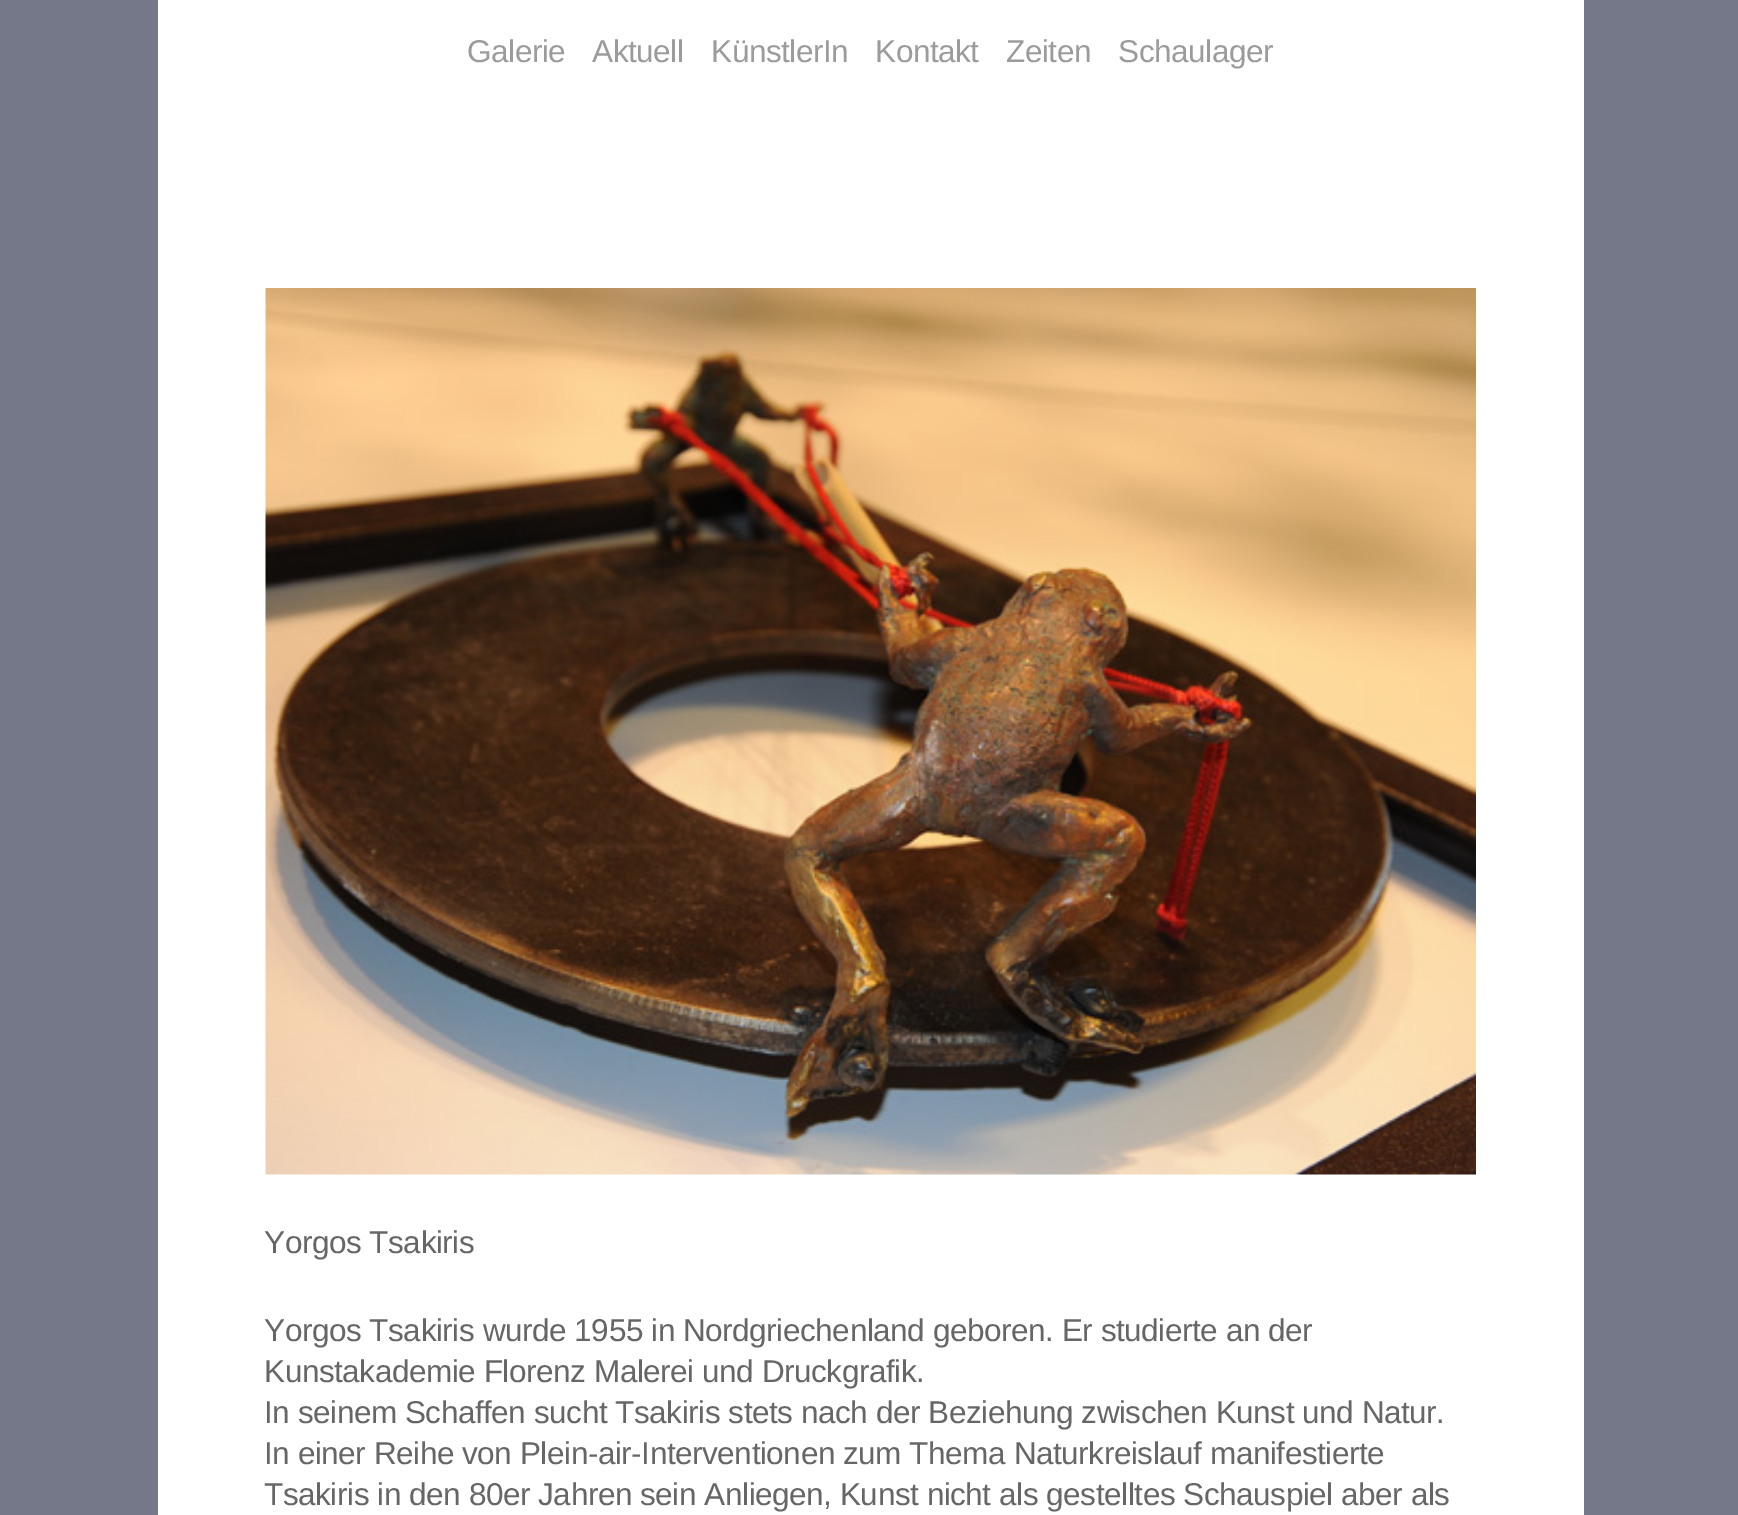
%!PS
<< /PageSize [1738 1515] >> setpagedevice
/m/moveto load def
/C { dup -16 bitshift 255 div exch dup -8 bitshift 255 and 255 div exch 255 and 255 div setrgbcolor } def
/F { [ exch dup neg 0 0 3 -1 roll 0 0 ] selectfont } def
/R { rectfill } def
/I { 5 dict begin { /h /w /y /x /name } { exch def } forall
  gsave x y translate w h scale
  w h 8 [w 0 0 h 0 0] name (r) file false 3 colorimage grestore end } def
0 1515 translate 1 -1 scale
4 setmiterlimit
16#757889 C
0 0 1738 1515 R
16#FFFFFF C
158 0 1426 1515 R
/LiberationSans-Regular 31.5 F
16#9B9B9B C
467 62 m -.45 0 (Galerie) ashow
592 62 m -.45 0 (Aktuell) ashow
711 62 m -.45 0 (KünstlerIn) ashow
875 62 m -.45 0 (Kontakt) ashow
1006 62 m -.45 0 (Zeiten) ashow
1118 62 m -.45 0 (Schaulager) ashow
(1.rgb) 265 288 1211 887 I
16#666666 C
264 1253 m -.45 0 (Yorgos Tsakiris) ashow
264 1341 m -.45 0 (Yorgos Tsakiris wurde 1955 in Nordgriechenland geboren. Er studierte an der) ashow
264 1382 m -.45 0 (Kunstakademie Florenz Malerei und Druckgrafik.) ashow
264 1423 m -.45 0 (In seinem Schaffen sucht Tsakiris stets nach der Beziehung zwischen Kunst und Natur.) ashow
264 1464 m -.45 0 (In einer Reihe von Plein-air-Interventionen zum Thema Naturkreislauf manifestierte) ashow
264 1505 m -.45 0 (Tsakiris in den 80er Jahren sein Anliegen, Kunst nicht als gestelltes Schauspiel aber als) ashow
showpage
